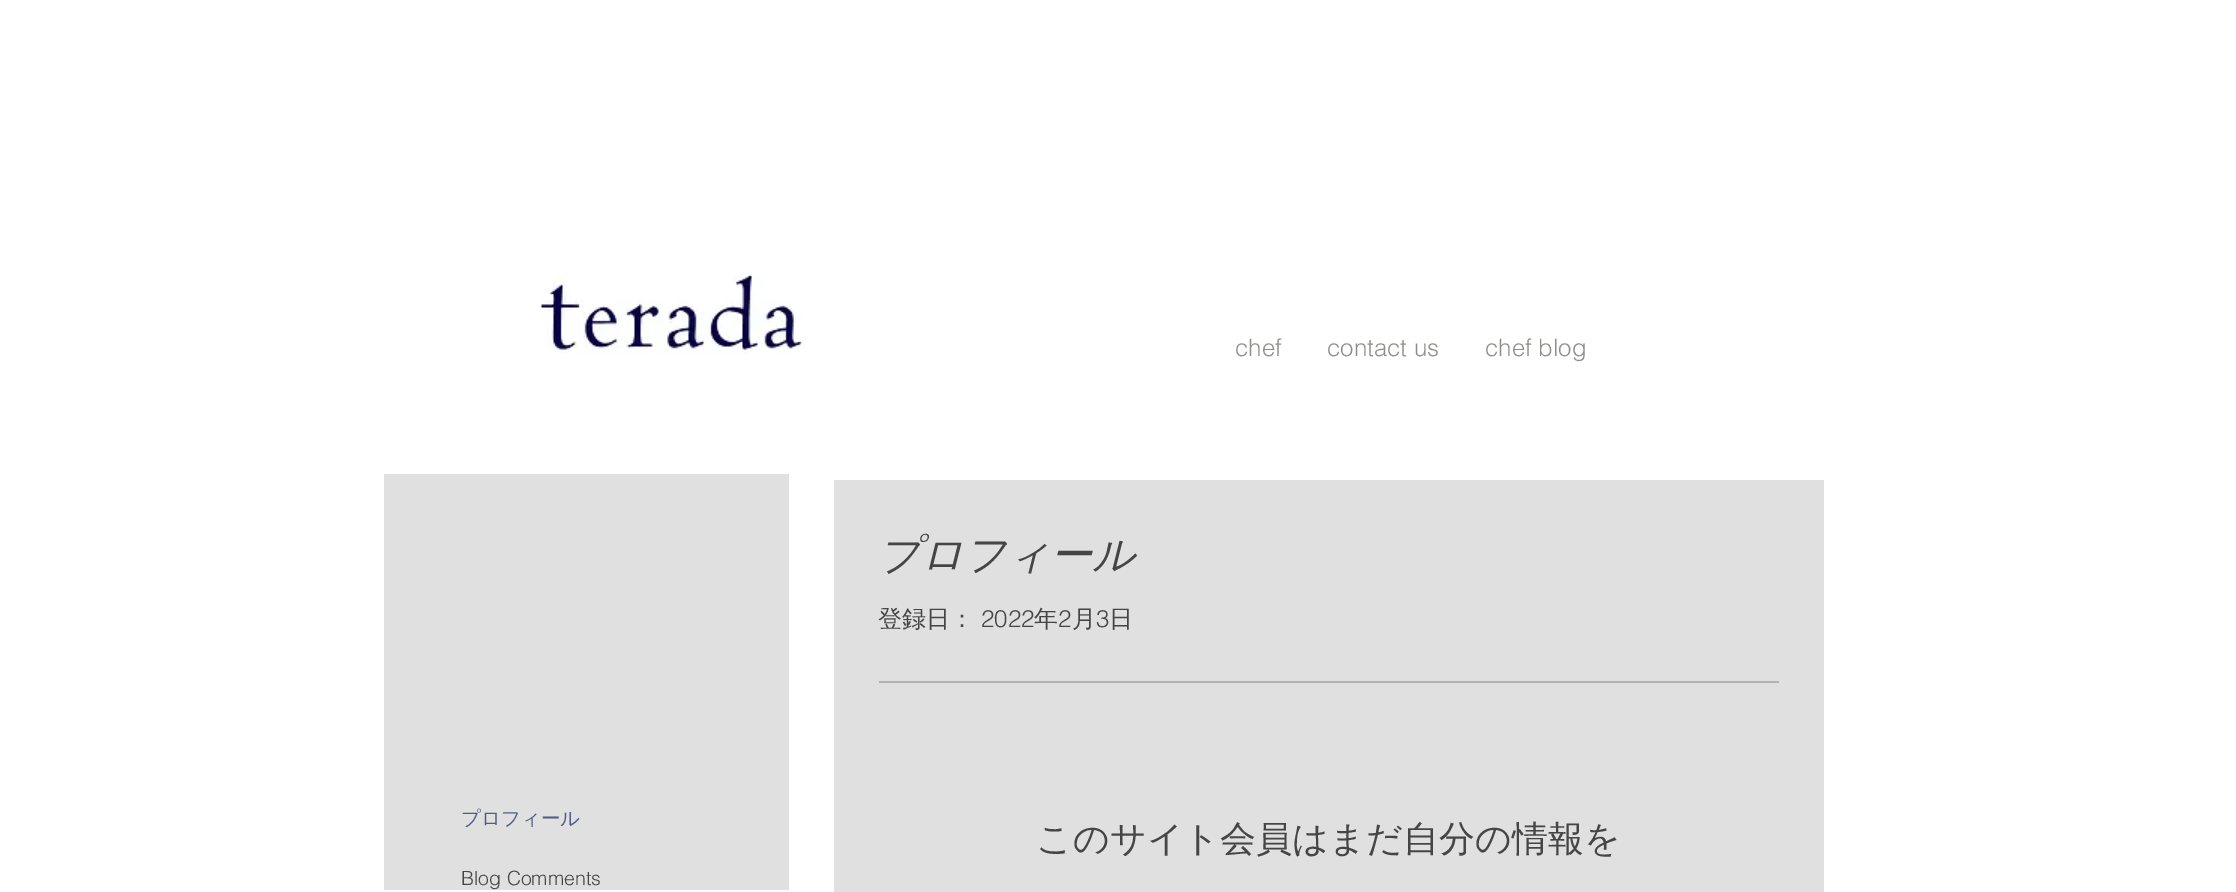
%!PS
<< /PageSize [2236 892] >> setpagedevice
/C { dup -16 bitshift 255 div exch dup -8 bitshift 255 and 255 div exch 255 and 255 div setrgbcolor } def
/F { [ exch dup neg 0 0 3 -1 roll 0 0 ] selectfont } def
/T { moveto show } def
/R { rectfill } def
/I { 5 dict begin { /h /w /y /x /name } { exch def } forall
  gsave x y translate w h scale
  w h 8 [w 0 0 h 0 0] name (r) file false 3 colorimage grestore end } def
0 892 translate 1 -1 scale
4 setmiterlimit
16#FFFFFF C
0 0 2236 892 R
(1.rgb) 541 275 265 79 I
/helvetica-Light 24 F
16#8E8E8B C
(chef) 1235 356 T
(contact us) 1327 356 T
(chef blog) 1485 356 T
16#E0E0E0 C
384 474 405 416 R
/WenQuanYiZenHei-Medium 19.5 F
16#515D87 C
(プロフィール) 461 825 T
/helvetica-Light 19.5 F
16#454545 C
(Blog Comments) 461 885 T
16#E0E0E0 C
834 480 990 412 R
/WenQuanYiZenHei-MediumItalic 42 F
16#454545 C
(プロフィール) 878 569 T
/WenQuanYiZenHei-Medium 24 F
(登録日：) 878 627 T
/helvetica-Light 24 F
(2022) 981 627 T
/WenQuanYiZenHei-Medium 24 F
(年) 1034 627 T
/helvetica-Light 24 F
(2) 1058 627 T
/WenQuanYiZenHei-Medium 24 F
(月) 1072 627 T
/helvetica-Light 24 F
(3) 1096 627 T
/WenQuanYiZenHei-Medium 24 F
(日) 1109 627 T
16#B2B2B2 C
879 681 900 2 R
/WenQuanYiZenHei-Medium 36 F
16#454545 C
(このサイト会員はまだ自分の情報を) 1036 851 T
showpage
